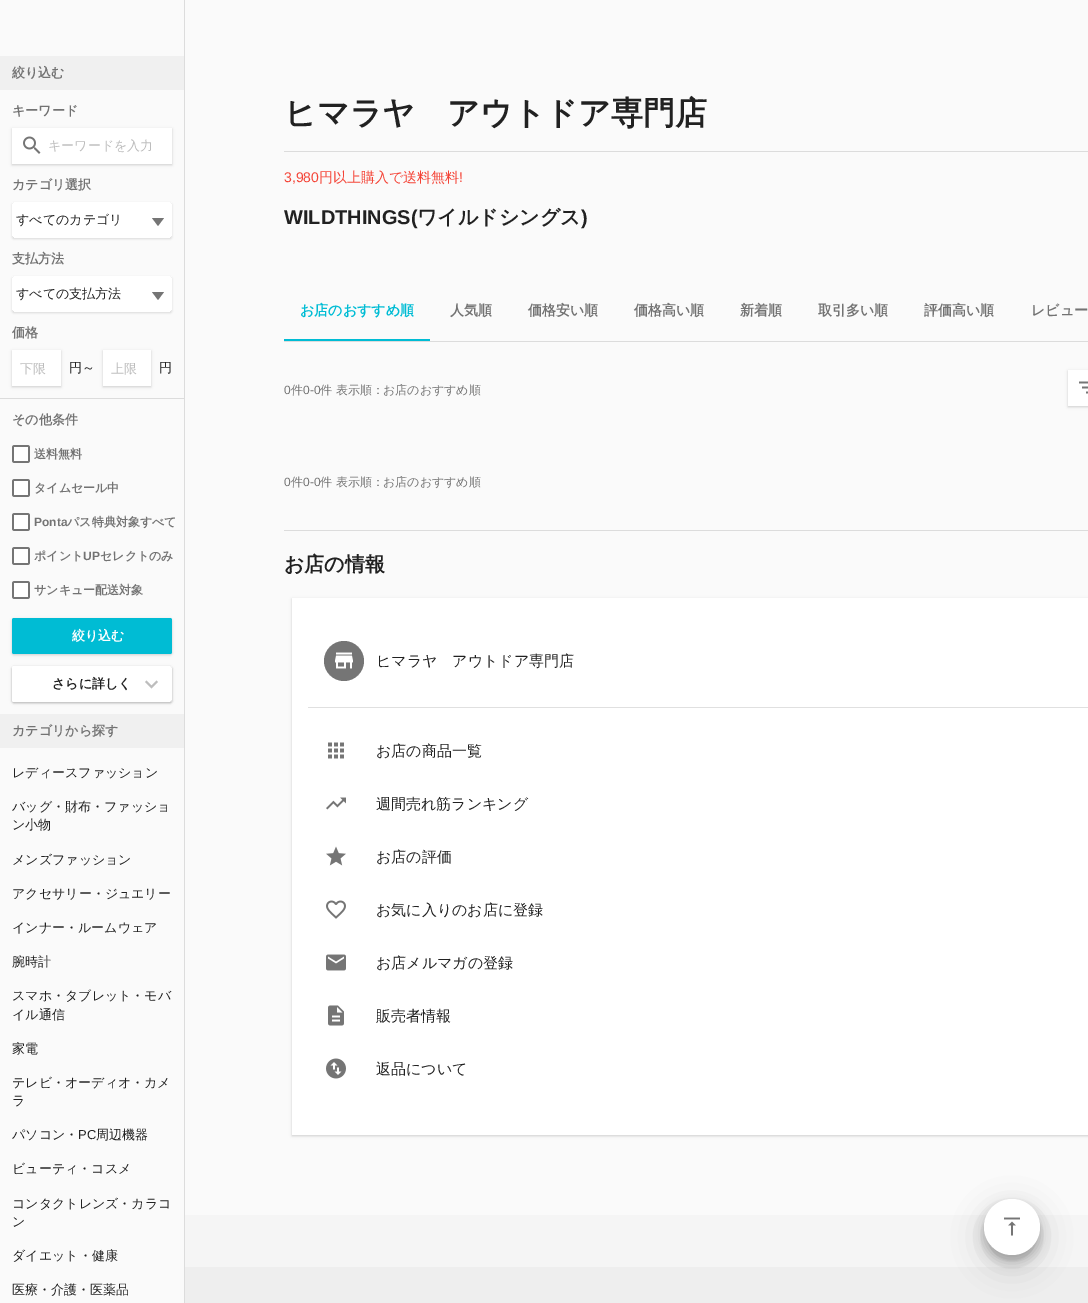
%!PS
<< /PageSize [1088 1303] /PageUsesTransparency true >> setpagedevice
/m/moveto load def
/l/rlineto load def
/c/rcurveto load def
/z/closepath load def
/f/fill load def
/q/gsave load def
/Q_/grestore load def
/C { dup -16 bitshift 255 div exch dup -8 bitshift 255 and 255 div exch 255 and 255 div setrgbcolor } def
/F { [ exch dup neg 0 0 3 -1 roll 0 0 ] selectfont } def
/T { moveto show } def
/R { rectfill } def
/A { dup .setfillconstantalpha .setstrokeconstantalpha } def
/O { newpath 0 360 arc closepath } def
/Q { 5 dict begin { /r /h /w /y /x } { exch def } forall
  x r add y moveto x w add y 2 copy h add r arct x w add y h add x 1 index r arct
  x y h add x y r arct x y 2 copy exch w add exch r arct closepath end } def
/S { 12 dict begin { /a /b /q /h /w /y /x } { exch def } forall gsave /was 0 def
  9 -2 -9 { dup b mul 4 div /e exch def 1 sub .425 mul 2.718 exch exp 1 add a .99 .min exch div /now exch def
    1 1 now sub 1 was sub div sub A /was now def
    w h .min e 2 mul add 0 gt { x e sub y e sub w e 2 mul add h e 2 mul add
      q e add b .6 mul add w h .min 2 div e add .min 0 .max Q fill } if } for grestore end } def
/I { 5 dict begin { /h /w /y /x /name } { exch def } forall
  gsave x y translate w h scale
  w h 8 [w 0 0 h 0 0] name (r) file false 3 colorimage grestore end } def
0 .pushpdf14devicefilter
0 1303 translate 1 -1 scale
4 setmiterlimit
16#FAFAFA C
0 0 1088 1303 R
16#DCDCDC C
184 0 1 1303 R
16#F0F0F0 C
0 56 184 34 R
/WenQuanYiZenHei-Bold 13 F
16#737373 C
(絞り込む) 12 77 T
(キーワード) 12 115 T
16#000000 C
12 129 160 36 0 2 .06 S
12 129 160 36 0 1 .12 S
16#FFFFFF C
12 128 160 36 R
(1.rgb) 23 136 18 18 I
/WenQuanYiZenHei-Medium 13 F
16#BDBDBD C
(キーワードを入力) 48 150 T
/WenQuanYiZenHei-Bold 13 F
16#737373 C
(カテゴリ選択) 12 189 T
16#FFFFFF C
12 202 160 36 R
16#757575 C
152 218 m 12 0 l -6 8 l z f
q
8 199 m 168 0 l 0 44 l -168 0 l z 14 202 m 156 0 l 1 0 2 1 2 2 c 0 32 l 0 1 -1 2 -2 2 c -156 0 l -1 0 -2 -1 -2 -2 c 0 -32 l 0 -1 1 -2 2 -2 c z eoclip newpath
16#000000 C
12 203 160 36 2 1 .12 S
Q_
/WenQuanYiZenHei-Medium 13 F
16#212121 C
(すべてのカテゴリ) 16 224 T
/WenQuanYiZenHei-Bold 13 F
16#737373 C
(支払方法) 12 263 T
16#FFFFFF C
12 276 160 36 R
16#757575 C
152 292 m 12 0 l -6 8 l z f
q
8 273 m 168 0 l 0 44 l -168 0 l z 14 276 m 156 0 l 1 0 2 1 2 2 c 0 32 l 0 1 -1 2 -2 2 c -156 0 l -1 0 -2 -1 -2 -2 c 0 -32 l 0 -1 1 -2 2 -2 c z eoclip newpath
16#000000 C
12 277 160 36 2 1 .12 S
Q_
/WenQuanYiZenHei-Medium 13 F
16#212121 C
(すべての支払方法) 16 298 T
/WenQuanYiZenHei-Bold 13 F
16#737373 C
(価格) 12 337 T
16#000000 C
12 351 49 36 0 2 .06 S
12 351 49 36 0 1 .12 S
16#FFFFFF C
12 350 49 36 R
/WenQuanYiZenHei-Medium 13 F
16#BDBDBD C
(下限) 20 373 T
16#212121 C
(円～) 69 372 T
16#000000 C
103 351 48 36 0 2 .06 S
103 351 48 36 0 1 .12 S
16#FFFFFF C
103 350 48 36 R
16#BDBDBD C
(上限) 111 373 T
16#212121 C
(円) 159 372 T
16#DCDCDC C
0 398 184 1 R
/WenQuanYiZenHei-Bold 13 F
16#737373 C
(その他条件) 12 424 T
16#FFFFFF C
12 445 18 18 R
(2.rgb) 12 445 18 18 I
/WenQuanYiZenHei-Bold 12 F
16#737373 C
(送料無料) 34 458 T
16#FFFFFF C
12 479 18 18 R
(2.rgb) 12 479 18 18 I
16#737373 C
(タイムセール中) 34 492 T
16#FFFFFF C
12 513 18 18 R
(2.rgb) 12 513 18 18 I
/LiberationSans-Bold 12 F
16#737373 C
(Ponta) 34 526 T
/WenQuanYiZenHei-Bold 12 F
(パス特典対象すべて) 67 526 T
16#FFFFFF C
12 547 18 18 R
(2.rgb) 12 547 18 18 I
16#737373 C
(ポイント) 34 560 T
/LiberationSans-Bold 12 F
(UP) 83 560 T
/WenQuanYiZenHei-Bold 12 F
(セレクトのみ) 100 560 T
16#FFFFFF C
12 581 18 18 R
(2.rgb) 12 581 18 18 I
16#737373 C
(サンキュー配送対象) 34 594 T
16#000000 C
12 619 160 36 2 2 .06 S
12 619 160 36 2 1 .12 S
16#00BCD4 C
12 618 160 36 2 Q f
/WenQuanYiZenHei-Bold 13 F
16#FFFFFF C
(絞り込む) 72 640 T
16#000000 C
12 667 160 36 2 2 .06 S
12 667 160 36 2 1 .12 S
16#FFFFFF C
12 666 160 36 2 Q f
q
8 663 m 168 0 l 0 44 l -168 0 l z 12 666 m 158 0 l 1 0 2 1 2 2 c 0 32 l 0 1 -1 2 -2 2 c -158 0 l z eoclip newpath
16#000000 C
12 667 160 36 2 1 .12 S
Q_
16#212121 C
(さらに詳しく) 52 688 T
16#BDBDBD C
158 682 m -6.5 6.5 l 0 -3 l 5 -5 l z f
0.26 A
16#000000 C
151.5 688.5 m -6.5 -6.5 l 1.5 -1.5 l 5 5 l z f
1 A
16#F0F0F0 C
0 714 184 34 R
16#737373 C
(カテゴリから探す) 12 735 T
/WenQuanYiZenHei-Medium 13 F
16#212121 C
(レディースファッション) 12 777 T
(バッグ・財布・ファッショ) 12 811 T
(ン小物) 12 829 T
(メンズファッション) 12 864 T
(アクセサリー・ジュエリー) 12 898 T
(インナー・ルームウェア) 12 932 T
(腕時計) 12 966 T
(スマホ・タブレット・モバ) 12 1000 T
(イル通信) 12 1019 T
(家電) 12 1053 T
(テレビ・オーディオ・カメ) 12 1087 T
(ラ) 12 1105 T
(パソコン・) 12 1139 T
/LiberationSans-Regular 13 F
(PC) 78 1139 T
/WenQuanYiZenHei-Medium 13 F
(周辺機器) 96 1139 T
(ビューティ・コスメ) 12 1173 T
(コンタクトレンズ・カラコ) 12 1208 T
(ン) 12 1226 T
(ダイエット・健康) 12 1260 T
(医療・介護・医薬品) 12 1294 T
/WenQuanYiZenHei-Bold 32 F
(ヒマラヤ　アウトドア専門店) 284 124 T
16#DCDCDC C
284 151 804 1 R
/LiberationSans-Regular 14 F
16#F44336 C
(3,980) 284 182 T
/WenQuanYiZenHei-Medium 14 F
(円以上購入で送料無料) 319 182 T
/LiberationSans-Regular 14 F
(!) 459 182 T
/LiberationSans-Bold 20 F
16#212121 C
(WILDTHINGS\() 284 224 T
/WenQuanYiZenHei-Bold 20 F
(ワイルドシングス) 417 224 T
/LiberationSans-Bold 20 F
(\)) 581 224 T
16#DCDCDC C
284 341 804 1 R
16#00BCD4 C
284 339 146 2 R
/WenQuanYiZenHei-Bold 14 F
(お店のおすすめ順) 300 315 T
16#737373 C
(人気順) 450 315 T
(価格安い順) 528 315 T
(価格高い順) 634 315 T
(新着順) 740 315 T
(取引多い順) 818 315 T
(評価高い順) 924 315 T
(レビュー) 1031 315 T
/LiberationSans-Regular 12 F
(0) 284 394 T
/WenQuanYiZenHei-Medium 12 F
(件) 291 394 T
/LiberationSans-Regular 12 F
(0-0) 303 394 T
/WenQuanYiZenHei-Medium 12 F
(件 表示順：) 320 394 T
(お店のおすすめ順) 383 394 T
16#000000 C
1068 371 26 36 0 2 .06 S
1068 371 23 36 0 1 .12 S
16#FFFFFF C
1068 370 20 36 R
(3.rgb) 1079 381 9 13 I
/LiberationSans-Regular 12 F
16#737373 C
(0) 284 486 T
/WenQuanYiZenHei-Medium 12 F
(件) 291 486 T
/LiberationSans-Regular 12 F
(0-0) 303 486 T
/WenQuanYiZenHei-Medium 12 F
(件 表示順：) 320 486 T
(お店のおすすめ順) 383 486 T
16#DCDCDC C
284 530 804 1 R
/WenQuanYiZenHei-Bold 20 F
16#212121 C
(お店の情報) 284 571 T
16#000000 C
292 599 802 537 0 2 .06 S
292 599 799 537 0 1 .12 S
16#FFFFFF C
292 598 796 537 R
16#757575 C
344 661 20 O f
(4.rgb) 335 652 18 17 I
/WenQuanYiZenHei-Medium 15 F
16#212121 C
(ヒマラヤ　アウトドア専門店) 376 666 T
16#E0E0E0 C
308 707 780 1 R
(5.rgb) 328 742 16 17 I
16#212121 C
(お店の商品一覧) 376 756 T
(6.rgb) 326 797 20 13 I
(週間売れ筋ランキング) 376 809 T
(7.rgb) 326 846 20 20 I
(お店の評価) 376 862 T
(8.rgb) 326 900 20 19 I
(お気に入りのお店に登録) 376 915 T
(9.rgb) 326 954 20 17 I
(お店メルマガの登録) 376 968 T
(10.rgb) 328 1005 16 21 I
(販売者情報) 376 1021 T
(11.rgb) 326 1058 20 21 I
(返品について) 376 1074 T
16#EEEEEE C
185 1267 903 36 R
16#F5F5F5 C
185 1215 903 52 R
16#000000 C
984 1209 56 56 28 15 .19 S
984 1205 56 56 28 5 .23 S
16#FFFFFF C
1012 1227 28 O f
(12.rgb) 1004 1217 16 19 I
.poppdf14devicefilter showpage
